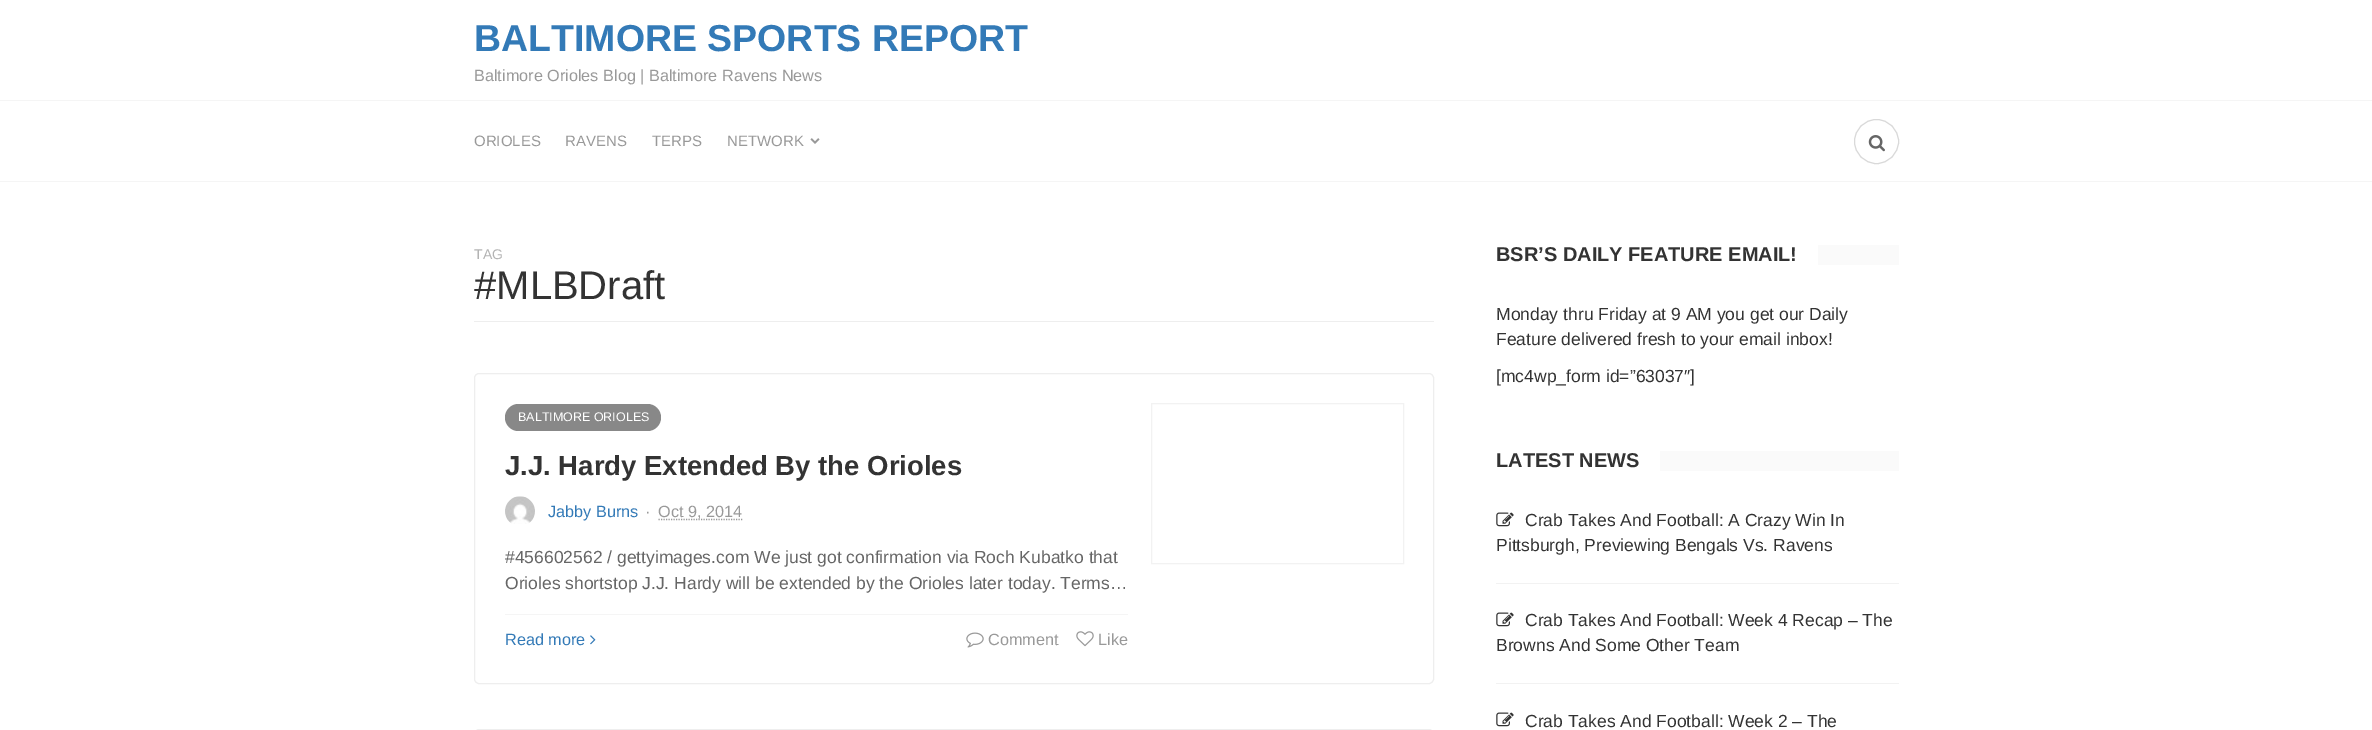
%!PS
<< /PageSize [2372 730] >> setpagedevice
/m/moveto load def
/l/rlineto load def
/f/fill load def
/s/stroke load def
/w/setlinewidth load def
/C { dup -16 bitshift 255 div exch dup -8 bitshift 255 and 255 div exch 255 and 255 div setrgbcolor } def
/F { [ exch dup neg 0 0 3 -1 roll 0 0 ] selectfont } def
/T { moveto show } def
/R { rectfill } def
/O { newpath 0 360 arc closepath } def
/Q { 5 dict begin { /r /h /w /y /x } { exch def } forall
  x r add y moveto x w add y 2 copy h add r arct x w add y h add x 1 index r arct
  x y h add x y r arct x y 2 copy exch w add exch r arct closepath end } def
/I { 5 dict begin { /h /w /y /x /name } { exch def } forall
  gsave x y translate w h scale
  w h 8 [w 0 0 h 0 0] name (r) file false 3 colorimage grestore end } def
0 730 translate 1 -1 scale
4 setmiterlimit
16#FFFFFF C
0 0 2372 730 R
/LiberationSans-Bold 37.5 F
16#337AB7 C
(BALTIMORE SPORTS REPORT) 474 51 T
/LiberationSans-Regular 16.25 F
16#999999 C
(Baltimore Orioles Blog | Baltimore Ravens News) 474 81 T
16#F5F5F5 C
0 100 2372 1 R
0 181 2372 1 R
/LiberationSans-Regular 15 F
16#999999 C
(ORIOLES) 474 146 T
(RAVENS) 565 146 T
(TERPS) 652 146 T
(NETWORK) 727 146 T
(1.rgb) 810 138 10 6 I
16#D9D9D9 C
1876.5 141.5 22 O s
(2.rgb) 1868 135 17 17 I
16#EEEEEE C
474 321 960 1 R
/LiberationSans-Regular 14 F
16#B3B3B3 C
(TAG) 474 259 T
/LiberationSans-Regular 40 F
16#333333 C
(#MLBDraft) 474 299 T
16#EEEEEE C
474.5 373.5 959 310 4.5 Q s
16#888888 C
505 404 156 27 13.5 Q f
/LiberationSans-Regular 12.5 F
16#FFFFFF C
(BALTIMORE ORIOLES) 518 421 T
/LiberationSans-Bold 27.5 F
16#333333 C
(J.J. Hardy Extended By the Orioles) 505 475 T
(3.rgb) 505 496 30 28 I
/LiberationSans-Regular 16.25 F
16#337AB7 C
(Jabby Burns) 548 517 T
16#999999 C
(·) 645 517 T
1.2 w
[1.25 1.25] 0 setdash
658.5 519.5 m 84 0 l s
(Oct 9, 2014) 658 517 T
/LiberationSans-Regular 17.5 F
16#666666 C
(#456602562 / gettyimages.com We just got confirmation via Roch Kubatko that) 505 563 T
(Orioles shortstop J.J. Hardy will be extended by the Orioles later today. Terms…) 505 589 T
16#F5F5F5 C
505 614 623 1 R
/LiberationSans-Regular 16.25 F
16#337AB7 C
(Read more) 505 645 T
(4.rgb) 590 635 6 10 I
(5.rgb) 966 632 18 16 I
16#999999 C
(Comment) 988 645 T
(6.rgb) 1076 631 18 16 I
(Like) 1098 645 T
16#F2F2F2 C
1 w
[] 0 setdash
1151.5 403.5 252 160 rectstroke
16#EEEEEE C
474.5 729.5 959 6 4.5 Q s
16#FAFAFA C
1818 245 81 20 R
/LiberationSans-Bold 20 F
16#333333 C
(BSR’S DAILY FEATURE EMAIL!) 1496 261 T
/LiberationSans-Regular 17.5 F
(Monday thru Friday at 9 AM you get our Daily) 1496 320 T
(Feature delivered fresh to your email inbox!) 1496 345 T
([mc4wp_form id=”63037″]) 1496 382 T
16#FAFAFA C
1660 451 239 20 R
/LiberationSans-Bold 20 F
16#333333 C
(LATEST NEWS) 1496 467 T
(7.rgb) 1496 512 18 15 I
/LiberationSans-Regular 17.5 F
(Crab Takes And Football: A Crazy Win In) 1525 526 T
(Pittsburgh, Previewing Bengals Vs. Ravens) 1496 551 T
16#F2F2F2 C
1496 583 403 1 R
(7.rgb) 1496 612 18 15 I
16#333333 C
(Crab Takes And Football: Week 4 Recap – The) 1525 626 T
(Browns And Some Other Team) 1496 651 T
16#F2F2F2 C
1496 683 403 1 R
(7.rgb) 1496 712 18 15 I
16#333333 C
(Crab Takes And Football: Week 2 – The) 1525 727 T
showpage
